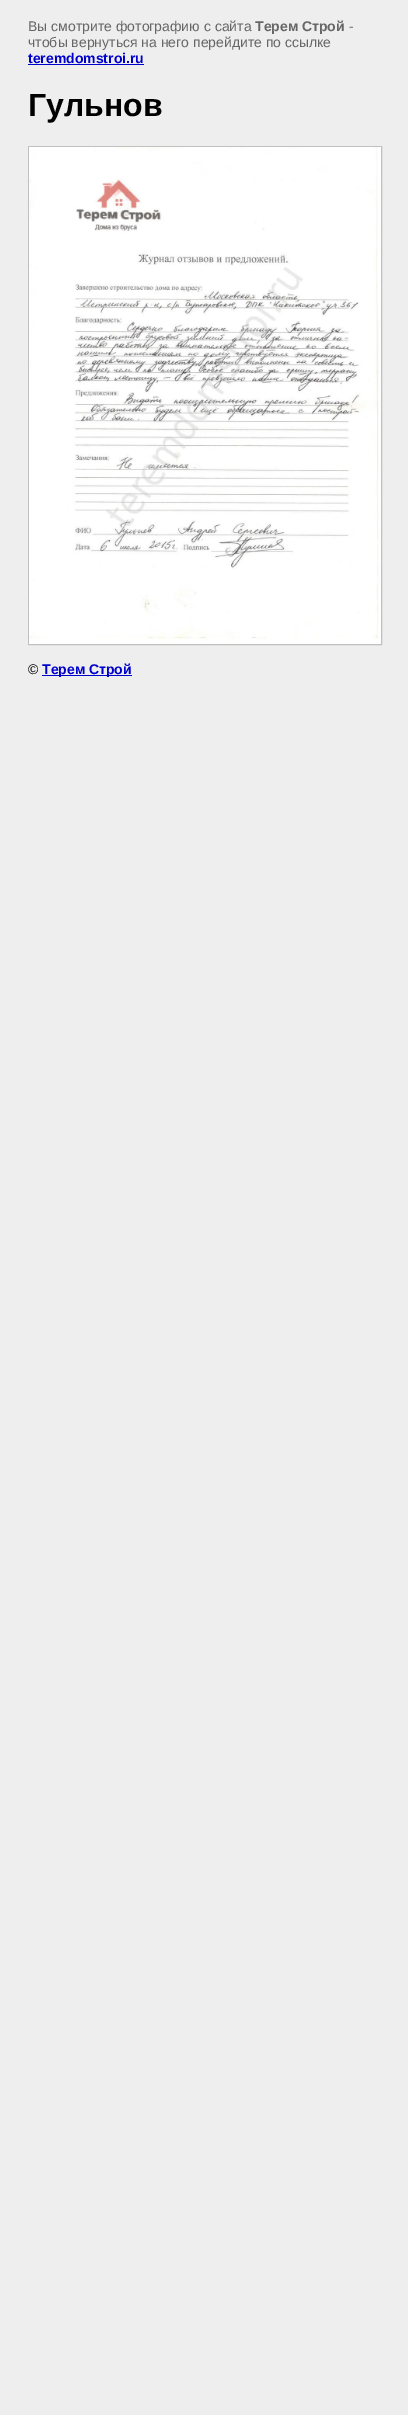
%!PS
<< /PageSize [408 2415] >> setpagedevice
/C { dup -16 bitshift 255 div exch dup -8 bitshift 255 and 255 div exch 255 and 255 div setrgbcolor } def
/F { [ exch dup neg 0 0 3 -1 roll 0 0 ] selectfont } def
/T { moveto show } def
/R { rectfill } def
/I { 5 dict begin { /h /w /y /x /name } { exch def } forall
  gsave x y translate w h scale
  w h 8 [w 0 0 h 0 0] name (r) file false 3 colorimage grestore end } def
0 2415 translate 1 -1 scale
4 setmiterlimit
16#EEEEEE C
0 0 408 2415 R
/LiberationSans-Regular 14 F
16#666666 C
(Вы смотрите фотографию с сайта) 28 31 T
/LiberationSans-Bold 14 F
(Терем Строй) 255 31 T
/LiberationSans-Regular 14 F
(-) 349 31 T
(чтобы вернуться на него перейдите по ссылке) 28 47 T
/LiberationSans-Bold 14 F
16#0000CC C
(teremdomstroi.ru) 28 63 T
28 64 116 1 R
/LiberationSans-Bold 32 F
16#000000 C
(Гульнов) 28 116 T
16#C0C0C0 C
28.5 146.5 353 498 rectstroke
(1.rgb) 29 147 352 497 I
/LiberationSans-Regular 14 F
16#000000 C
(©) 28 674 T
16#0000CC C
42 675 90 1 R
/LiberationSans-Bold 14 F
(Терем Строй) 42 674 T
showpage
